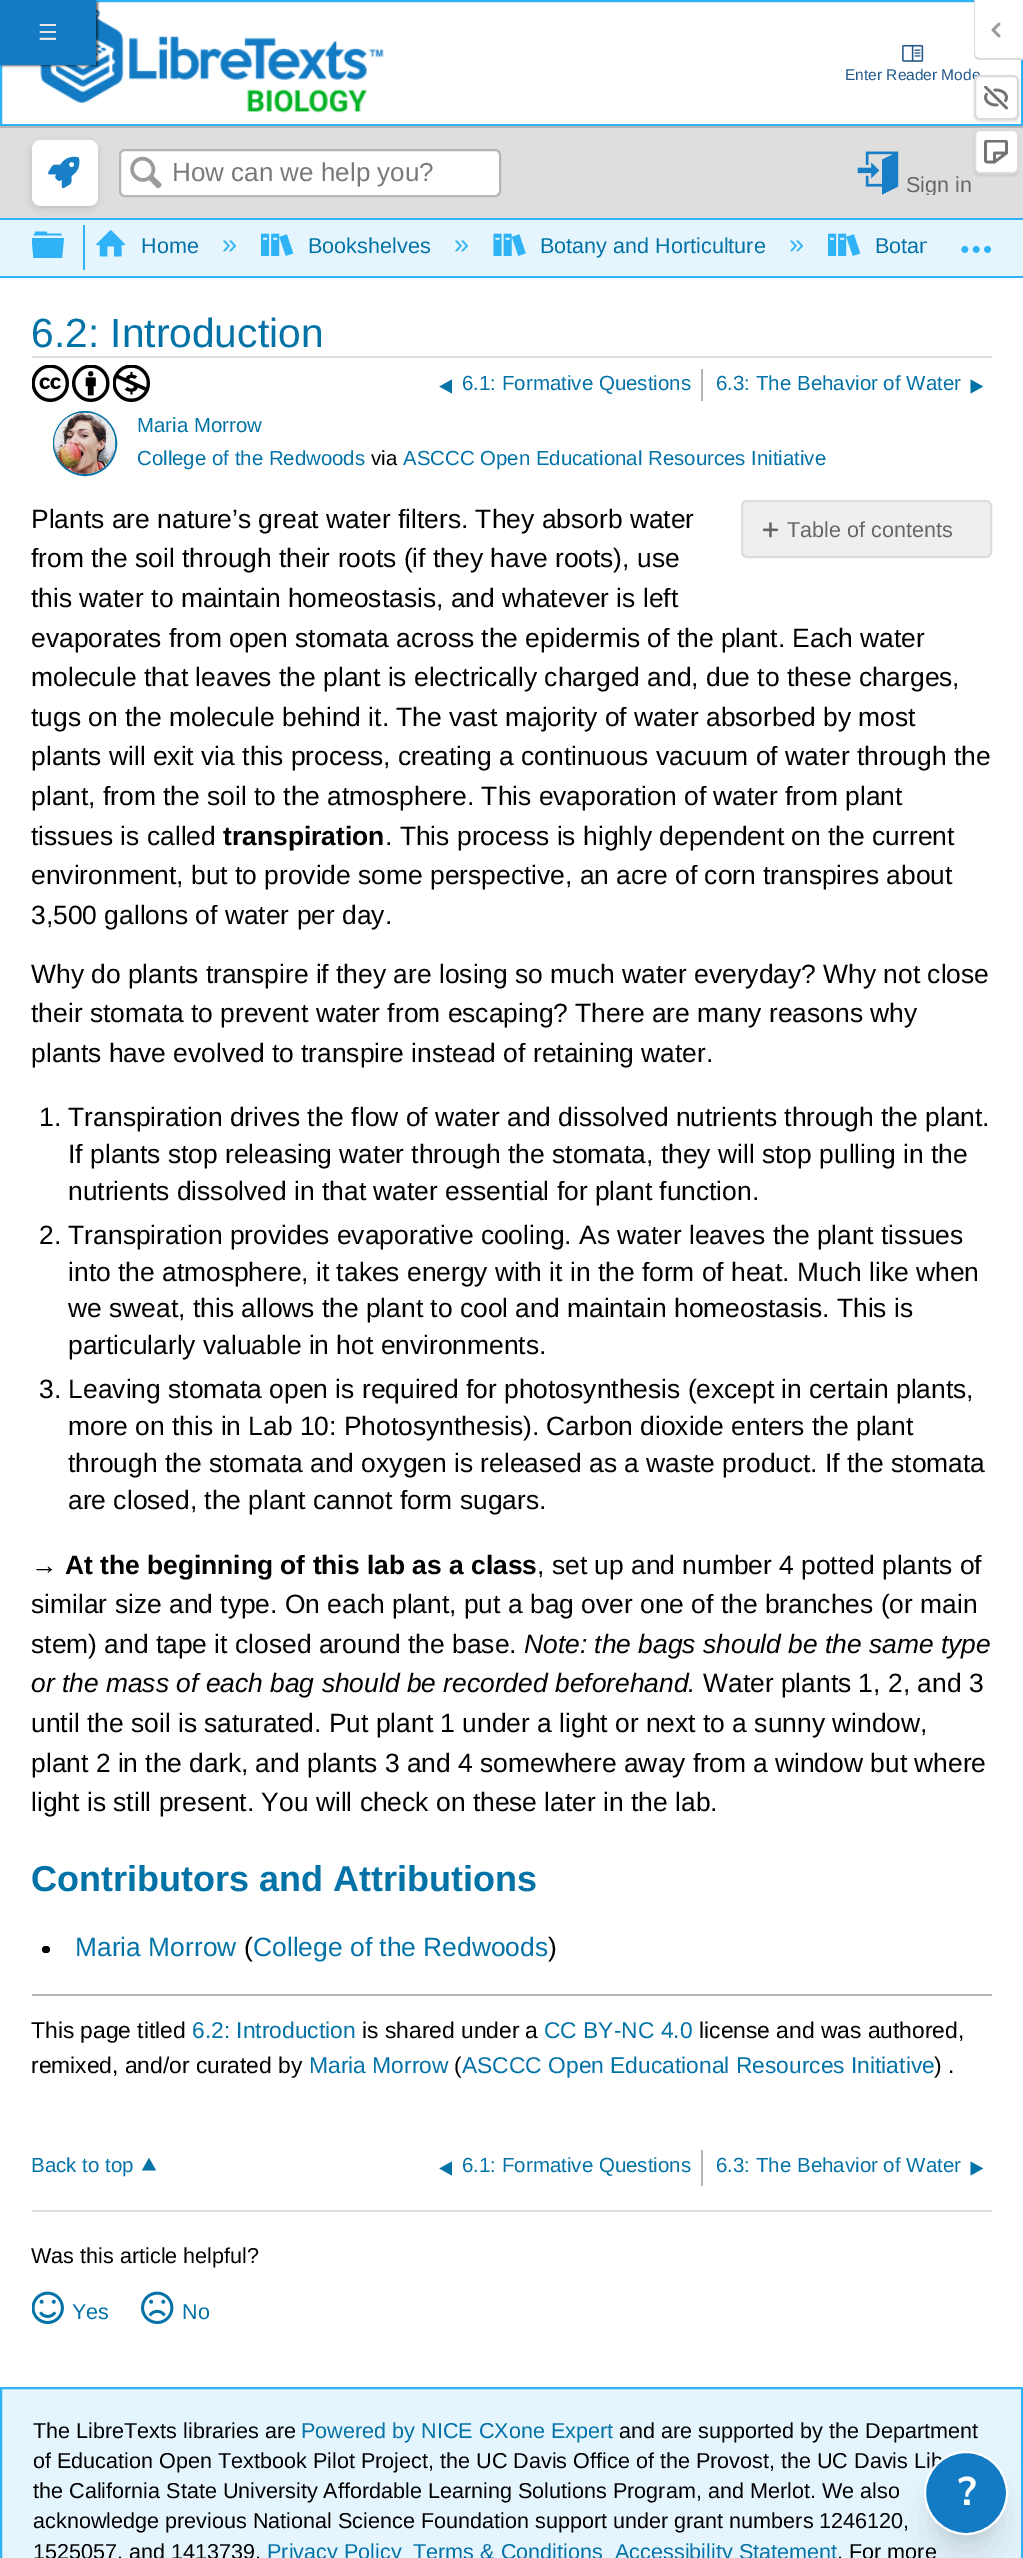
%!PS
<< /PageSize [1023 2558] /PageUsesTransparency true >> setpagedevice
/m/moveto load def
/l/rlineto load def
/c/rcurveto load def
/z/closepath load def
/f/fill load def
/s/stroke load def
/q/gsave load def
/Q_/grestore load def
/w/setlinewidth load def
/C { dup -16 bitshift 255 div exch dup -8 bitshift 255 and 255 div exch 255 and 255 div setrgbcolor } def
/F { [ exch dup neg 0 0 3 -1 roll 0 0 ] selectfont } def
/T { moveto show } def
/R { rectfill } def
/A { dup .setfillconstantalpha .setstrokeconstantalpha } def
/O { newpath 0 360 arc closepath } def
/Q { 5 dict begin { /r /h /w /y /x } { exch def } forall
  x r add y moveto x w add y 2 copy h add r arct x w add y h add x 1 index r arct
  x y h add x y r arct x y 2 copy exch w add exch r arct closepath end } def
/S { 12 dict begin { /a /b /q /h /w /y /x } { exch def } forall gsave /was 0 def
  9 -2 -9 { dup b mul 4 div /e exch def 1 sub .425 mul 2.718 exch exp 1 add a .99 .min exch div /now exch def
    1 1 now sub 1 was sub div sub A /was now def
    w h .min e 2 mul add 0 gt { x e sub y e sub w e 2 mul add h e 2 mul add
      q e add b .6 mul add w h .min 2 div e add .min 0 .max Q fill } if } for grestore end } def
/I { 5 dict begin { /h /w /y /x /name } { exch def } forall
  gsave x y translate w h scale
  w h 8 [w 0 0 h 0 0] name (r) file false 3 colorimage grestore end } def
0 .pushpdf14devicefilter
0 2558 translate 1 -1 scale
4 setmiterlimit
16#FFFFFF C
0 0 1023 2558 R
16#30B3F6 C
2 w
1 1 1021 124 rectstroke
(4.rgb) 40 9 344 104 I
16#000000 C
2 2 96 64 0 1 .6 S
16#127BC4 C
0 0 96 65 R
/DejaVuSans-Regular 22 F
16#E5E5E5 C
38 40 m 1 0 (☰) ashow
16#FFFFFF C
975 0 m 48 0 l 0 59 l -43 0 l -3 0 -5 -2 -5 -5 c z f
16#DBDBDB C
974 0 m 49 0 l 0 60 l -43 0 l -4 0 -6 -3 -6 -6 c z 975 0 m 48 0 l 0 58 l -43 0 l -3 0 -5 -2 -5 -4 c z eofill
(1.rgb) 991 22 10 16 I
16#000000 C
974 77 45 45 6 1 .1 S
/LiberationSans-Regular 15.5 F
16#235A8B C
(Enter Reader Mode) 845 80 T
16#FFFFFF C
975 76 43 43 5 Q q f Q_
16#DBDBDB C
s
(2.rgb) 984 86 24 24 I
16#DEDEDE C
0 128 1023 90 R
16#B6B6B6 C
0 126 1023 2 R
16#000000 C
974 131 45 45 6 1 .1 S
16#FFFFFF C
975 130 43 43 5 Q q f Q_
16#DBDBDB C
s
(3.rgb) 984 140 24 24 I
(5.rgb) 902 44 22 18 I
16#30B3F6 C
0 218 1023 2 R
16#080808 C
33 144 63 63 8 4 .2 S
16#FFFFFF C
32 140 66 66 9 Q f
(6.rgb) 48 156 32 33 I
120 150 380 46 5 Q q f Q_
16#B6B6B6 C
s
(7.rgb) 130 156 32 33 I
/LiberationSans-Regular 26 F
16#797979 C
(How can we help you?) 172 181 T
(8.rgb) 857 151 42 44 I
q
855 150 126 45 rectclip
/LiberationSans-Regular 21.6 F
16#666666 C
(Sign in) 906 192 T
Q_
16#E5F5FE C
0 220 1023 56 R
16#30B3F6 C
0 276 1023 2 R
32 243 m 0 -5 l 32 0 l -2 20 l -28.5 0 l z 61 233.5 m -13.5 0 l -1 -2 l -11 0 l -2 4 l 28.5 0 l z eofill
83 225 2 45 R
(9.rgb) 96 230 30 27 I
/LiberationSans-Regular 21.6 F
16#0372A6 C
(Home) 141 253 T
/LiberationSans-Regular 27 F
16#30B3F6 C
(») 222 253 T
(10.rgb) 261 233 33 23 I
/LiberationSans-Regular 21.6 F
16#0372A6 C
(Bookshelves) 308 253 T
/LiberationSans-Regular 27 F
16#30B3F6 C
(») 454 253 T
(11.rgb) 493 233 33 23 I
/LiberationSans-Regular 21.6 F
16#0372A6 C
(Botany and Horticulture) 540 253 T
/LiberationSans-Regular 27 F
16#30B3F6 C
(») 789 253 T
(10.rgb) 828 233 33 23 I
q
84 225 843 45 rectclip
/LiberationSans-Regular 21.6 F
16#0372A6 C
(Botan) 875 253 T
Q_
(12.rgb) 961 245 31 8 I
16#DDDDDD C
32 356 960 2 R
/LiberationSans-Regular 40.75 F
16#0372A6 C
(6.2: Introduction) 31 347 T
(13.rgb) 32 365 37 37 I
(14.rgb) 72 365 38 37 I
(15.rgb) 113 365 37 37 I
16#B4B4B4 C
701 369 2 32 R
16#0372A6 C
452 379.5 m 0 14 l -12.5 -7 l z f
/LiberationSans-Regular 20.5 F
(6.1: Formative Questions) 462 390 T
(6.3: The Behavior of Water) 716 390 T
970.5 379.5 m 0 14 l 12.5 -7 l z f
54 412 62 63 31 Q s
(16.rgb) 54 412 62 62 I
/LiberationSans-Regular 20.4 F
(Maria Morrow) 137 432 T
(College of the Redwoods) 137 465 T
16#000000 C
(via) 371 465 T
16#0372A6 C
(ASCCC Open Educational Resources Initiative) 403 465 T
/LiberationSans-Regular 26.4 F
16#000000 C
(Plants are nature’s great water filters. They absorb water) 31 528 T
(from the soil through their roots \(if they have roots\), use) 31 567 T
(this water to maintain homeostasis, and whatever is left) 31 607 T
(evaporates from open stomata across the epidermis of the plant. Each water) 31 647 T
(molecule that leaves the plant is electrically charged and, due to these charges,) 31 686 T
(tugs on the molecule behind it. The vast majority of water absorbed by most) 31 726 T
(plants will exit via this process, creating a continuous vacuum of water through the) 31 765 T
(plant, from the soil to the atmosphere. This evaporation of water from plant) 31 805 T
(tissues is called) 31 845 T
/LiberationSans-Bold 26.4 F
(transpiration) 223 845 T
/LiberationSans-Regular 26.4 F
(. This process is highly dependent on the current) 385 845 T
(environment, but to provide some perspective, an acre of corn transpires about) 31 884 T
(3,500 gallons of water per day.) 31 924 T
(Why do plants transpire if they are losing so much water everyday? Why not close) 31 983 T
(their stomata to prevent water from escaping? There are many reasons why) 31 1022 T
(plants have evolved to transpire instead of retaining water.) 31 1062 T
(1. Transpiration drives the flow of water and dissolved nutrients through the plant.) 39 1126 T
(If plants stop releasing water through the stomata, they will stop pulling in the) 68 1163 T
(nutrients dissolved in that water essential for plant function.) 68 1200 T
(2. Transpiration provides evaporative cooling. As water leaves the plant tissues) 39 1244 T
(into the atmosphere, it takes energy with it in the form of heat. Much like when) 68 1281 T
(we sweat, this allows the plant to cool and maintain homeostasis. This is) 68 1317 T
(particularly valuable in hot environments.) 68 1354 T
(3. Leaving stomata open is required for photosynthesis \(except in certain plants,) 39 1398 T
(more on this in Lab 10: Photosynthesis\). Carbon dioxide enters the plant) 68 1435 T
(through the stomata and oxygen is released as a waste product. If the stomata) 68 1472 T
(are closed, the plant cannot form sugars.) 68 1509 T
/LiberationSans-Bold 26.4 F
(→ At the beginning of this lab as a class) 31 1574 T
/LiberationSans-Regular 26.4 F
(, set up and number 4 potted plants of) 537 1574 T
(similar size and type. On each plant, put a bag over one of the branches \(or main) 31 1613 T
(stem\) and tape it closed around the base.) 31 1653 T
/LiberationSans-Italic 26.4 F
(Note: the bags should be the same type) 524 1653 T
(or the mass of each bag should be recorded beforehand.) 31 1692 T
/LiberationSans-Regular 26.4 F
(Water plants 1, 2, and 3) 703 1692 T
(until the soil is saturated. Put plant 1 under a light or next to a sunny window,) 31 1732 T
(plant 2 in the dark, and plants 3 and 4 somewhere away from a window but where) 31 1772 T
(light is still present. You will check on these later in the lab.) 31 1811 T
/LiberationSans-Bold 36 F
16#0372A6 C
(Contributors and Attributions) 31 1891 T
16#000000 C
42 1946 8 7 3.5 Q f
/LiberationSans-Regular 26.4 F
16#0372A6 C
(Maria Morrow) 75 1956 T
16#000000 C
(\() 244 1956 T
16#0372A6 C
(College of the Redwoods) 253 1956 T
16#000000 C
(\)) 548 1956 T
16#B4B4B4 C
32 1994 960 2 R
/LiberationSans-Regular 22.8 F
16#000000 C
(This page titled) 31 2038 T
16#0372A6 C
(6.2: Introduction) 192 2038 T
16#000000 C
(is shared under a) 362 2038 T
16#0372A6 C
(CC BY-NC 4.0) 544 2038 T
16#000000 C
(license and was authored,) 699 2038 T
(remixed, and/or curated by) 31 2073 T
16#0372A6 C
(Maria Morrow) 309 2073 T
16#000000 C
(\() 454 2073 T
16#0372A6 C
(ASCCC Open Educational Resources Initiative) 462 2073 T
16#000000 C
(\) .) 934 2073 T
16#EFEFEF C
742 501 249 56 5 Q q f Q_
16#DDDDDD C
s
(17.rgb) 763 522 15 16 I
/LiberationSans-Regular 21.6 F
16#666666 C
(Table of contents) 787 537 T
16#DDDDDD C
32 2210 960 2 R
/LiberationSans-Regular 20.5 F
16#0372A6 C
(Back to top) 31 2172 T
142 2170.5 m 14 0 l -7 -12.5 l z f
16#B4B4B4 C
701 2150 2 36 R
16#0372A6 C
452 2161.5 m 0 14 l -12.5 -7 l z f
(6.1: Formative Questions) 462 2172 T
(6.3: The Behavior of Water) 716 2172 T
970.5 2161.5 m 0 14 l 12.5 -7 l z f
/LiberationSans-Regular 21.6 F
16#000000 C
(Was this article helpful?) 31 2263 T
(18.rgb) 32 2291 32 33 I
16#0372A6 C
(Yes) 72 2319 T
(19.rgb) 141 2291 33 33 I
(No) 182 2319 T
16#E5F5FE C
1 2388 m 1021 0 l 0 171 l -1021 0 l z q f Q_
16#30B3F6 C
s
16#000000 C
(The LibreTexts libraries are) 33 2438 T
16#0372A6 C
(Powered by NICE CXone Expert) 301 2438 T
16#000000 C
(and are supported by the Department) 619 2438 T
(of Education Open Textbook Pilot Project, the UC Davis Office of the Provost, the UC Davis Lib) 33 2468 T
(the California State University Affordable Learning Solutions Program, and Merlot. We also) 33 2498 T
(acknowledge previous National Science Foundation support under grant numbers 1246120,) 33 2528 T
(1525057, and 1413739.) 33 2559 T
16#0372A6 C
(Privacy Policy) 267 2559 T
(Terms & Conditions) 413 2559 T
(Accessibility Statement) 615 2559 T
16#000000 C
(. For more) 837 2559 T
933 2472 66 66 33 7.5 .1 S
932 2489 69 69 34.5 19 .1 S
16#127BC4 C
966 2493 41 O q f Q_
16#FFFFFF C
s
/NunitoSans-Bold 40 F
(?) 958 2505 T
.poppdf14devicefilter showpage
